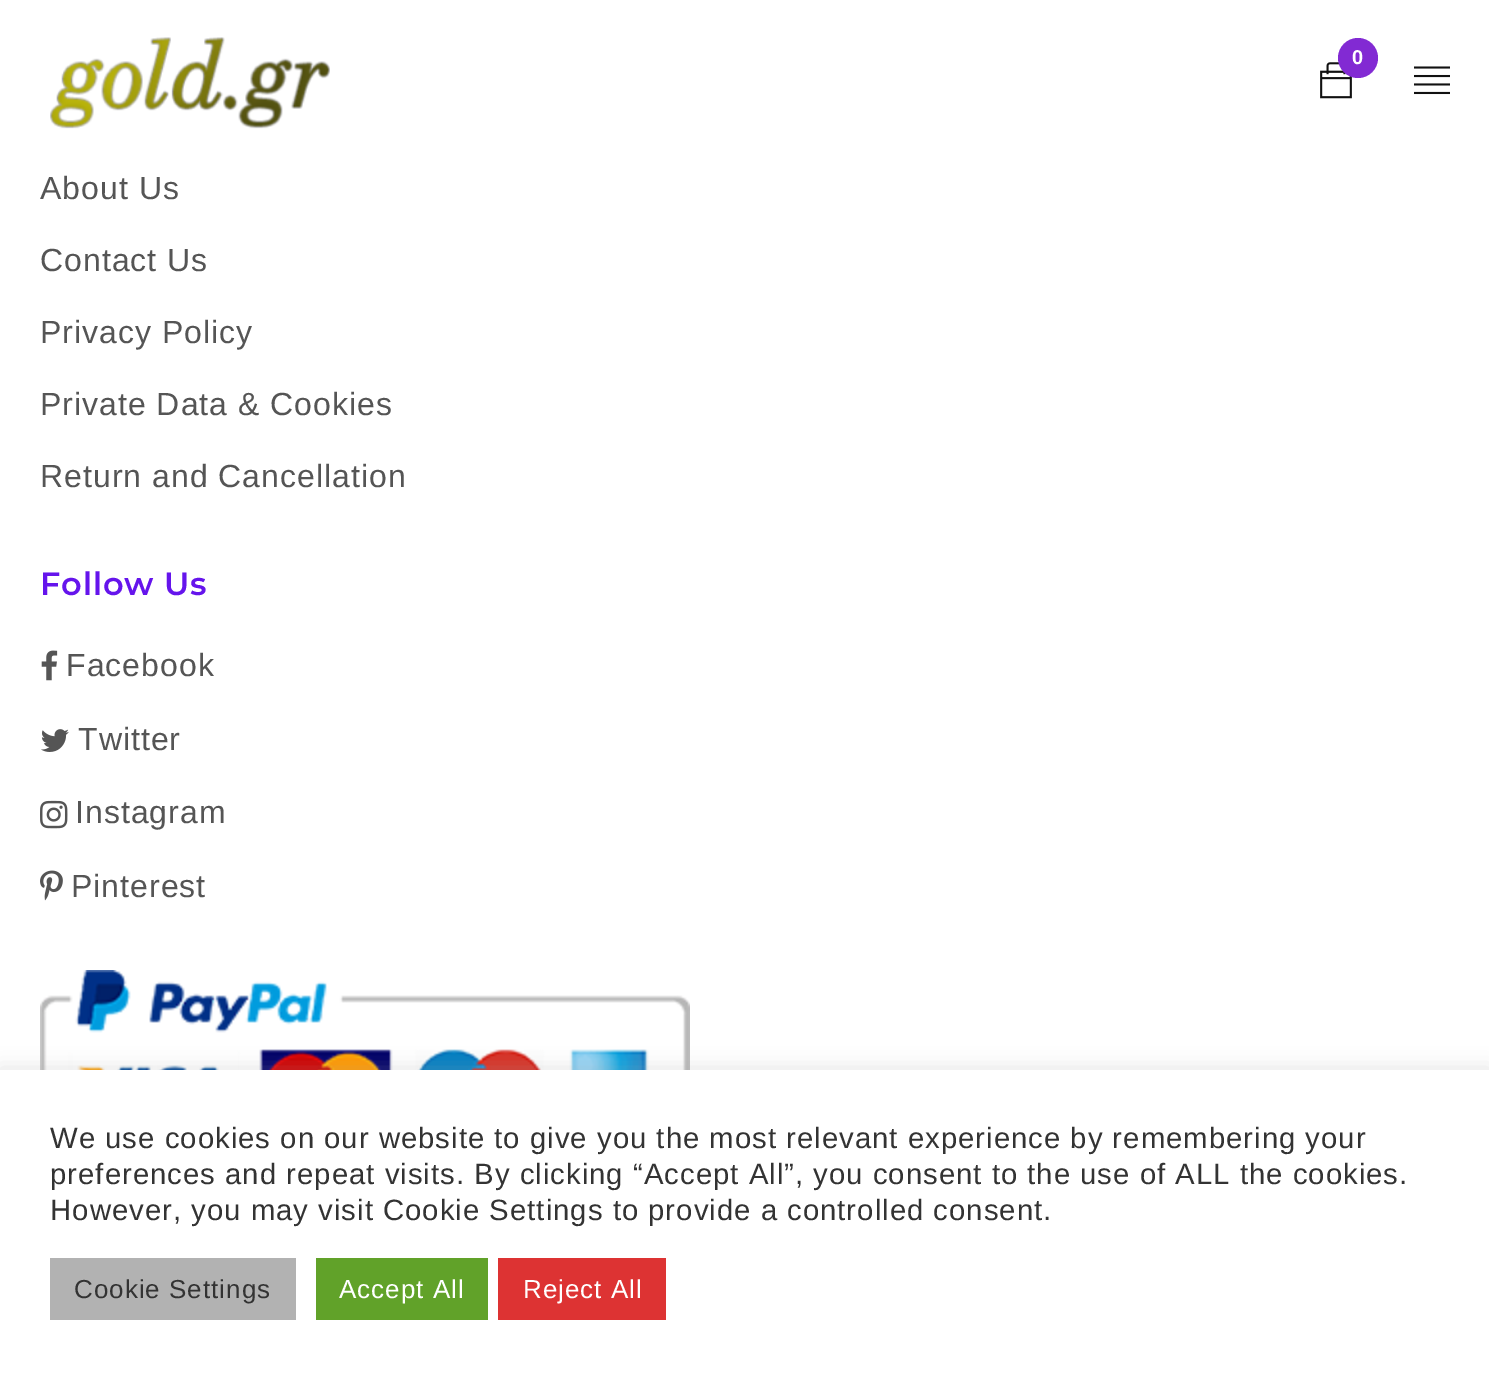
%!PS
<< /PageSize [1489 1380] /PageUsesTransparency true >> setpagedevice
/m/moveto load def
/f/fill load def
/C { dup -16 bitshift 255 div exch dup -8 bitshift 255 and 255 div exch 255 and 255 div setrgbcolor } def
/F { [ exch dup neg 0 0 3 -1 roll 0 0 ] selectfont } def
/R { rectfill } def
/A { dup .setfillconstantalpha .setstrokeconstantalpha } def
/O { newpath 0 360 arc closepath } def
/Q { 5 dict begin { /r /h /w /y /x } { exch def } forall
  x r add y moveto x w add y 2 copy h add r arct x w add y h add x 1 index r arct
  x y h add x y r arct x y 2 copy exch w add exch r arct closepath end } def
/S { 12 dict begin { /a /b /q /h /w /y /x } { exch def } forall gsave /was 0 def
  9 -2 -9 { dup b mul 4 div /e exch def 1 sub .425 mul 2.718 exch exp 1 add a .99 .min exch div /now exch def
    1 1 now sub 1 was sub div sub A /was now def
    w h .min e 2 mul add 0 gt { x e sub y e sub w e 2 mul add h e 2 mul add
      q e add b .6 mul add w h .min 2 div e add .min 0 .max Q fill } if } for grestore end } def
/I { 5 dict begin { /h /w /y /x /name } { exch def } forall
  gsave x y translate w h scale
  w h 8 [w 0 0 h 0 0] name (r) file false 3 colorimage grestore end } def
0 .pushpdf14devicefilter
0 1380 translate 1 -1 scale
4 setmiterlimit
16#FFFFFF C
0 0 1489 1380 R
(1.rgb) 50 37 280 92 I
(2.rgb) 1320 62 32 37 I
16#822AD3 C
1358 58 20 O f
/Arimo-Bold 20 F
16#FFFFFF C
1352 64 m 1 0 (0) ashow
(3.rgb) 1414 66 36 29 I
/Arimo-Regular 32 F
16#555555 C
40 199 m 1 0 (About Us) ashow
40 271 m 1 0 (Contact Us) ashow
40 343 m 1 0 (Privacy Policy) ashow
40 415 m 1 0 (Private Data & Cookies) ashow
40 487 m 1 0 (Return and Cancellation) ashow
/Montserrat-SemiBold 32 F
16#6514EC C
40 595 m .75 0 (Follow Us) ashow
(4.rgb) 41 650 17 31 I
/Arimo-Regular 32 F
16#555555 C
66 676 m 1 0 (Facebook) ashow
(5.rgb) 41 729 28 23 I
78 750 m 1 0 (Twitter) ashow
(6.rgb) 40 800 28 29 I
75 823 m 1 0 (Instagram) ashow
(7.rgb) 40 870 23 31 I
71 897 m 1 0 (Pinterest) ashow
(8.rgb) 40 970 650 100 I
16#ACABAB C
0 1068 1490 310 0 10 .3 S
16#FFFFFF C
0 1070 1489 310 R
/Arimo-Regular 29.35 F
16#333333 C
50 1148 m 1 0 (We use cookies on our website to give you the most relevant experience by remembering your) ashow
50 1184 m 1 0 (preferences and repeat visits. By clicking “Accept All”, you consent to the use of ALL the cookies.) ashow
50 1220 m 1 0 (However, you may visit Cookie Settings to provide a controlled consent.) ashow
16#B2B2B2 C
50 1258 246 62 R
/Arimo-Regular 26 F
16#333333 C
74 1298 m 1 0 (Cookie Settings) ashow
16#61A229 C
316 1258 172 62 R
16#FFFFFF C
339 1298 m 1 0 (Accept All) ashow
16#DD3333 C
498 1258 168 62 R
16#FFFFFF C
523 1298 m 1 0 (Reject All) ashow
.poppdf14devicefilter showpage
